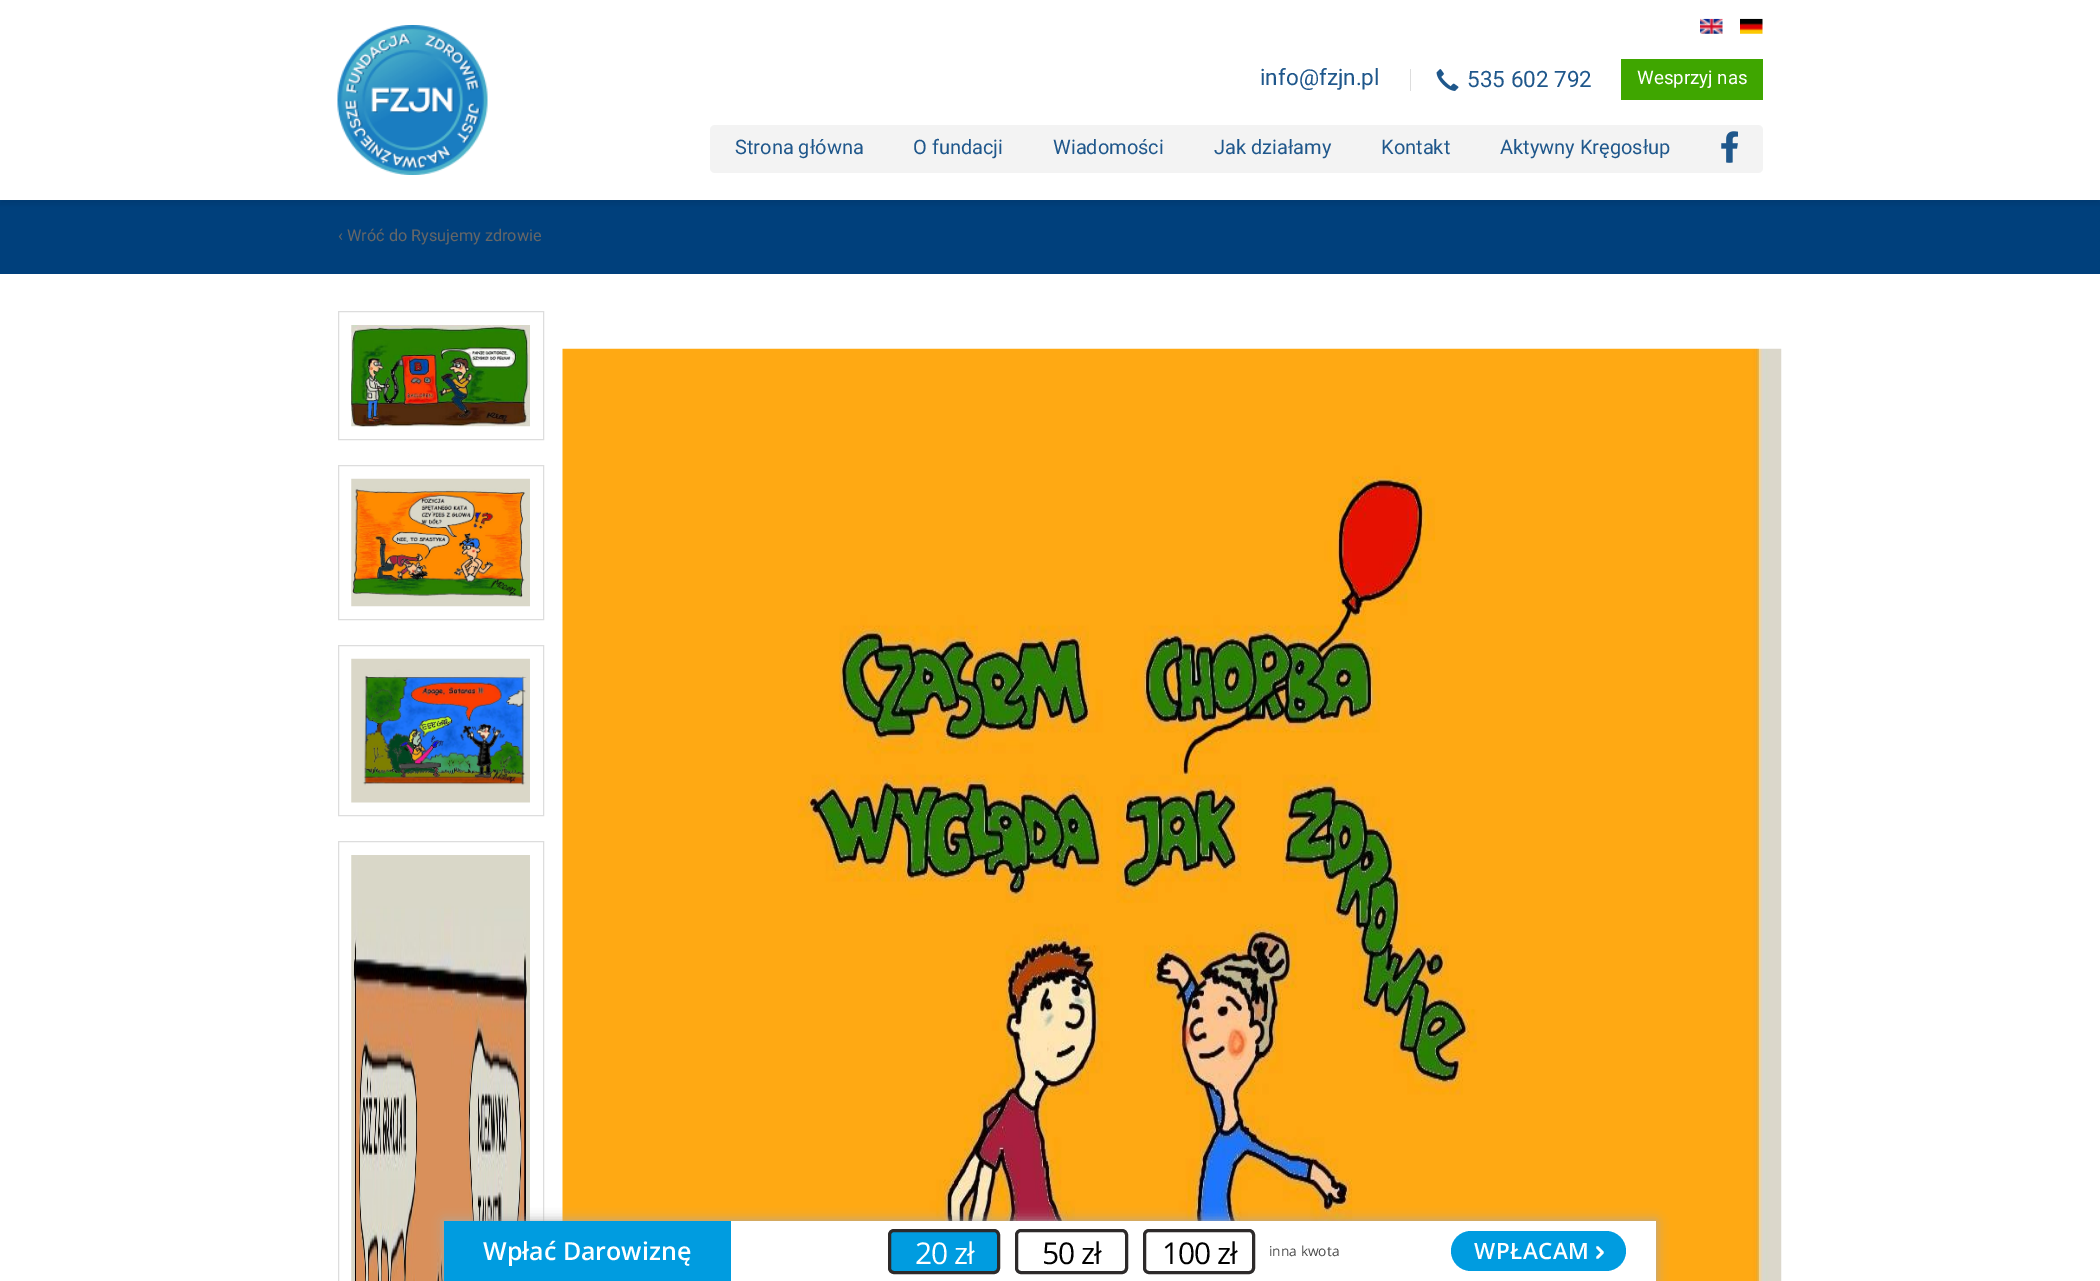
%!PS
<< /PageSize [2100 1281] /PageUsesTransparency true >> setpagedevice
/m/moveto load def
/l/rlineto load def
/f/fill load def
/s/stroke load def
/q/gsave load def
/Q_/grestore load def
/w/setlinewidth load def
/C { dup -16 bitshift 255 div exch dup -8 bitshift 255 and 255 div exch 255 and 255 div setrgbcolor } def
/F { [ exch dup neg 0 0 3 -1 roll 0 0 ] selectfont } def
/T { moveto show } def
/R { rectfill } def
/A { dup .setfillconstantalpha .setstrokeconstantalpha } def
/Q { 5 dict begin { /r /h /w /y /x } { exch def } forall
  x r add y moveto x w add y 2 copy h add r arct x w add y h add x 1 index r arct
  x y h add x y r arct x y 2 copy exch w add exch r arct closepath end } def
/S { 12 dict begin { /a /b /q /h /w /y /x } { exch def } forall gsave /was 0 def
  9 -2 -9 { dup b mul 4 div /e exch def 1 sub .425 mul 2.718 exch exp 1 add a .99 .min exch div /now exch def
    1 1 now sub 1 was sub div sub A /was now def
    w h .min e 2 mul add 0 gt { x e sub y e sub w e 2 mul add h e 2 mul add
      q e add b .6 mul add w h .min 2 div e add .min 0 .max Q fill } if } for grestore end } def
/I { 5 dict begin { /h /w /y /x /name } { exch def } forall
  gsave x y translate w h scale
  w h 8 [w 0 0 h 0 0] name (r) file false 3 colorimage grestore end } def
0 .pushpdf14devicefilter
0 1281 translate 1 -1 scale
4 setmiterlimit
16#FFFFFF C
0 0 2100 1281 R
16#00407C C
0 200 2100 74 R
q
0 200 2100 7 rectclip
16#000000 C
0 4 2100 200 0 3 .1 S
Q_
(1.rgb) 337 25 151 150 I
(2.rgb) 1700 18 23 16 I
(3.rgb) 1740 18 23 16 I
/Roboto-Regular 22.5 F
16#1F578B C
(info@fzjn.pl) 1260 85 T
16#DDDDDD C
1410 69 1 22 R
(4.rgb) 1436 69 23 22 I
16#1F578B C
(535 602 792) 1467 87 T
16#3FA600 C
1621 59 142 41 R
/Roboto-Regular 18.75 F
16#FFFFFF C
(Wesprzyj nas) 1637 84 T
16#F3F3F3 C
710 125 1053 48 5 Q f
/Roboto-Regular 20 F
16#1F578B C
(Strona główna) 735 154 T
(O fundacji) 913 154 T
(Wiadomości) 1053 154 T
(Jak działamy) 1214 154 T
(Kontakt) 1381 154 T
(Aktywny Kręgosłup) 1500 154 T
(5.rgb) 1721 131 17 32 I
/Roboto-Regular 16.25 F
16#666666 C
(‹ Wróć do Rysujemy zdrowie) 338 241 T
16#DDDDDD C
338.5 311.5 205 128 rectstroke
(6.rgb) 351 325 179 102 I
338.5 465.5 205 154 rectstroke
(7.rgb) 351 478 179 129 I
338.5 645.5 205 170 rectstroke
(8.rgb) 351 658 179 145 I
338.5 841.5 205 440 rectstroke
(9.rgb) 351 855 179 426 I
(10.rgb) 562 348 1220 933 I
16#AAAAAA C
444 1221 1212 60 0 6 1 S
16#FFFFFF C
731 1221 925 60 R
16#009CE0 C
444 1221 287 60 R
/OpenSans-SemiBold 25 F
16#FFFFFF C
(Wpłać Darowiznę) 483 1260 T
16#009CE0 C
889.5 1230.5 109 42 4.5 Q q f Q_
16#2D2A2A C
3 w
s
/OpenSans-Regular 30 F
16#FFFFFF C
915 1264 m -1 0 (20 zł) ashow
16#2D2A2A C
1016.5 1230.5 110 42 4.5 Q s
16#000000 C
1042 1264 m -1 0 (50 zł) ashow
16#2D2A2A C
1144.5 1230.5 109 42 4.5 Q s
16#000000 C
1162 1264 m -1 0 (100 zł) ashow
/OpenSans-Regular 13.75 F
16#4A4A4A C
(inna kwota) 1269 1256 T
16#009CE0 C
1451 1231 175 40 20 Q f
/OpenSans-SemiBold 22.5 F
16#FFFFFF C
1474 1259 m .5 0 (WPŁACAM) ashow
2.5 w
1 setlinecap
1 setlinejoin
1597.5 1247.5 m 5 5 l -5 5 l s
.poppdf14devicefilter showpage
